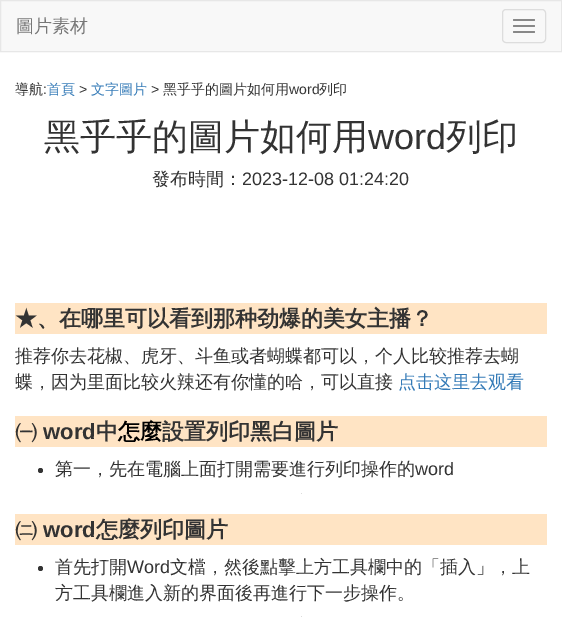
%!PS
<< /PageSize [562 626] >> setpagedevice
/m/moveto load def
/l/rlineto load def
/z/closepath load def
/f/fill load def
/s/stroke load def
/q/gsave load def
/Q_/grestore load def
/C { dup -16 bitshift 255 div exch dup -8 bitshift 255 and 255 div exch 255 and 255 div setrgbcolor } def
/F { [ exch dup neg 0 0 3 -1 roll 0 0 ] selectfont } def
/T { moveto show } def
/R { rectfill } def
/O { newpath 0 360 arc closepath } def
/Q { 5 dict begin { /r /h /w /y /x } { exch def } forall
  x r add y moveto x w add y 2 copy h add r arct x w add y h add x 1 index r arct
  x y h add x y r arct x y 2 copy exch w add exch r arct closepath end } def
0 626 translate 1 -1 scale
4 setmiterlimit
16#FFFFFF C
0 0 562 626 R
16#F8F8F8 C
.5 .5 m 561 0 l 0 51 l -561 0 l z q f Q_
16#E7E7E7 C
s
/WenQuanYiZenHei-Medium 18 F
16#777777 C
(圖片素材) 16 32 T
16#DDDDDD C
502.5 9.5 43 33 3.5 Q s
16#888888 C
513 19 22 2 1 Q f
513 25 22 2 1 Q f
513 31 22 2 1 Q f
/WenQuanYiZenHei-Medium 14 F
16#333333 C
(導航) 15 94 T
/LiberationSans-Regular 14 F
(:) 43 94 T
/WenQuanYiZenHei-Medium 14 F
16#337AB7 C
(首頁) 47 94 T
/LiberationSans-Regular 14 F
16#333333 C
(>) 79 94 T
/WenQuanYiZenHei-Medium 14 F
16#337AB7 C
(文字圖片) 91 94 T
/LiberationSans-Regular 14 F
16#333333 C
(>) 151 94 T
/WenQuanYiZenHei-Medium 14 F
(黑乎乎的圖片如何用) 163 94 T
/LiberationSans-Regular 14 F
(word) 289 94 T
/WenQuanYiZenHei-Medium 14 F
(列印) 319 94 T
/WenQuanYiZenHei-Medium 36 F
(黑乎乎的圖片如何用) 44 149 T
/LiberationSans-Regular 36 F
(word) 368 149 T
/WenQuanYiZenHei-Medium 36 F
(列印) 446 149 T
/WenQuanYiZenHei-Medium 18 F
(發布時間：) 152 185 T
/LiberationSans-Regular 18 F
(2023-12-08 01:24:20) 242 185 T
16#FFE4C4 C
15 303 532 31 R
/WenQuanYiZenHei-Bold 22 F
16#333333 C
(★、在哪里可以看到那种劲爆的美女主播？) 15 326 T
/WenQuanYiZenHei-Medium 18 F
(推荐你去花椒、虎牙、斗鱼或者蝴蝶都可以，个人比较推荐去蝴) 15 362 T
(蝶，因为里面比较火辣还有你懂的哈，可以直接) 15 388 T
16#337AB7 C
(点击这里去观看) 398 388 T
16#FFE4C4 C
15 416 532 31 R
/WenQuanYiZenHei-Bold 22 F
16#333333 C
(㈠) 15 439 T
/LiberationSans-Bold 22 F
(word) 43 439 T
/WenQuanYiZenHei-Bold 22 F
(中) 96 439 T
16#000000 C
(怎麼) 118 439 T
16#333333 C
(設置列印黑白圖片) 162 439 T
40.5 470.5 2.5 O f
/WenQuanYiZenHei-Medium 18 F
(第一，先在電腦上面打開需要進行列印操作的) 55 475 T
/LiberationSans-Regular 18 F
(word) 415 475 T
16#DCDCDC C
301 493 1 1 R
16#FFE4C4 C
15 514 532 31 R
/WenQuanYiZenHei-Bold 22 F
16#333333 C
(㈡) 15 537 T
/LiberationSans-Bold 22 F
(word) 43 537 T
/WenQuanYiZenHei-Bold 22 F
(怎麼列印圖片) 96 537 T
40.5 568.5 2.5 O f
/WenQuanYiZenHei-Medium 18 F
(首先打開) 55 573 T
/LiberationSans-Regular 18 F
(Word) 127 573 T
/WenQuanYiZenHei-Medium 18 F
(文檔，然後點擊上方工具欄中的「插入」，上) 170 573 T
(方工具欄進入新的界面後再進行下一步操作。) 55 599 T
16#DCDCDC C
301 616 1 1 R
showpage
